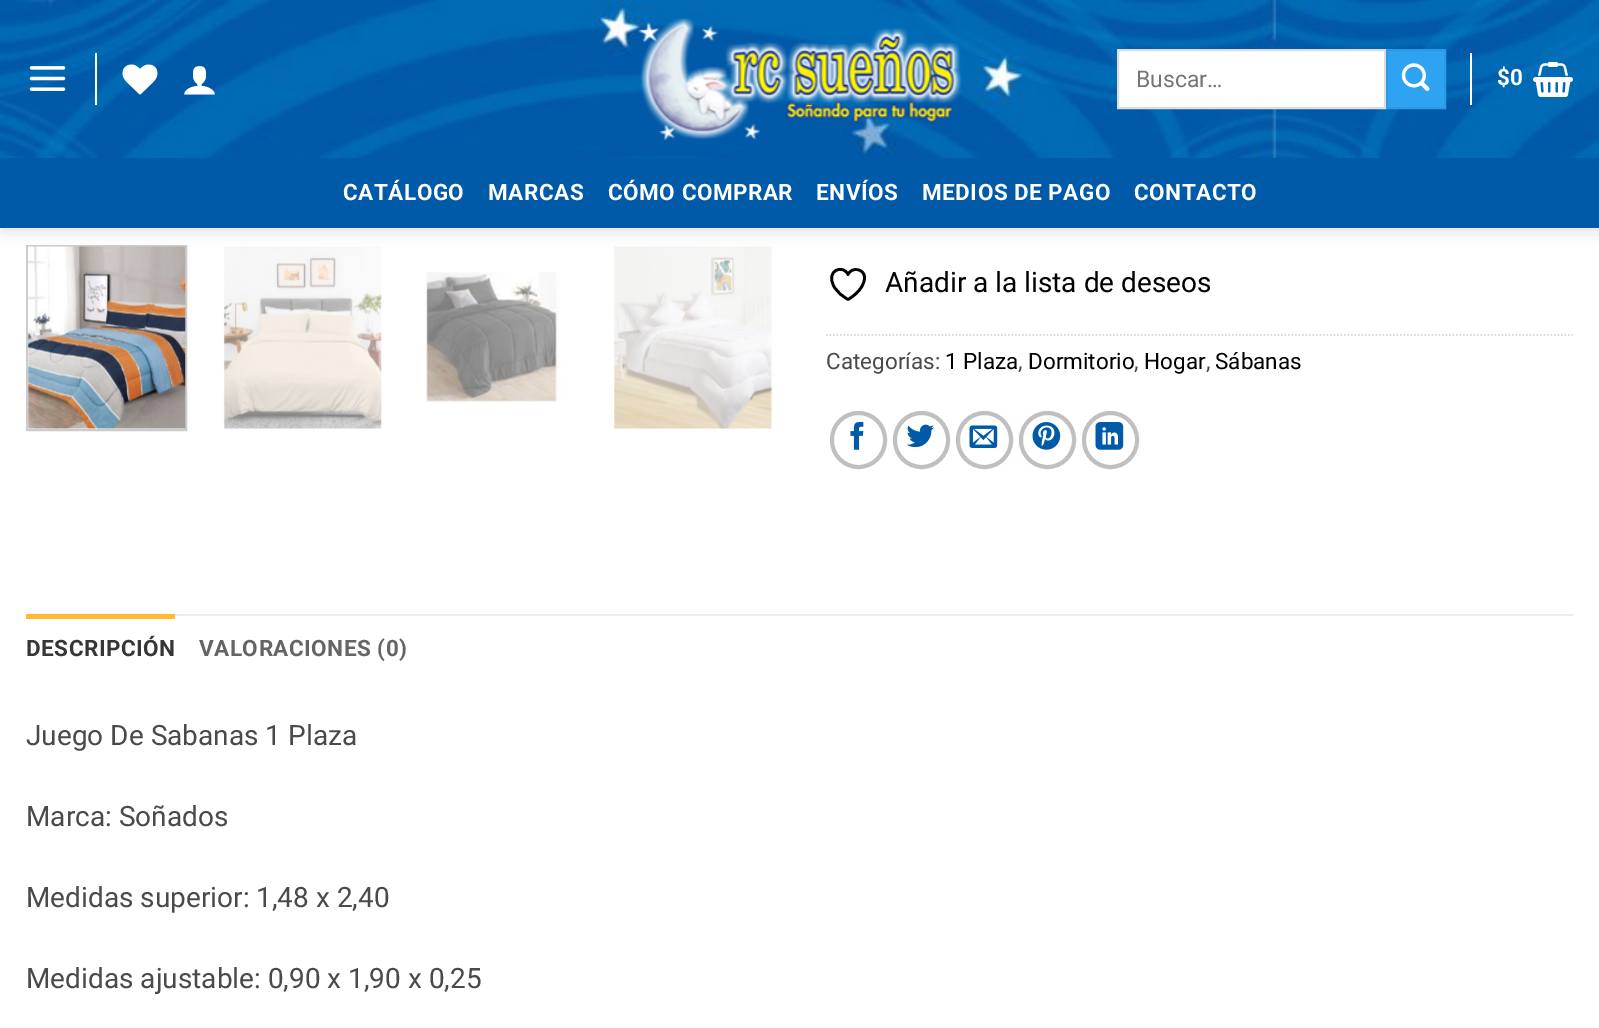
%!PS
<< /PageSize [1599 1028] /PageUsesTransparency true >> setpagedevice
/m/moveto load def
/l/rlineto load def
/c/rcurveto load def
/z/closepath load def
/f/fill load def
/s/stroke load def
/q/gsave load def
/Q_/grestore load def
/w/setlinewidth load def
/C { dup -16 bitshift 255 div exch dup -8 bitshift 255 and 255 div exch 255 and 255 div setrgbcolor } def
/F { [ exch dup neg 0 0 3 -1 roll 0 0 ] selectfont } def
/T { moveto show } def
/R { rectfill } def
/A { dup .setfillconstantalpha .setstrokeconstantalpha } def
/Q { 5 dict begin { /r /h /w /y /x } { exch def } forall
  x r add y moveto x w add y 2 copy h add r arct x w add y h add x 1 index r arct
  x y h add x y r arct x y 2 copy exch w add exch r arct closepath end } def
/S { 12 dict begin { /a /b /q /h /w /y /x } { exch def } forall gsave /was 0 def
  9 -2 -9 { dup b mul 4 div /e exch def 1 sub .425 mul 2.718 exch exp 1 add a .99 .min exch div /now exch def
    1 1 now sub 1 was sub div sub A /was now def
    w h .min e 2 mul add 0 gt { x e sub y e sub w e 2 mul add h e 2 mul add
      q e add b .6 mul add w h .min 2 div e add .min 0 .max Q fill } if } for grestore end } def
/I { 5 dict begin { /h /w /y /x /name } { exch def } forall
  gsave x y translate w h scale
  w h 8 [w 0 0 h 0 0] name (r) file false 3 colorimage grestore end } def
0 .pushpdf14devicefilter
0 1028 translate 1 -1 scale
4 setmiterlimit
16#FFFFFF C
0 0 1599 1028 R
16#CCCCCC C
2 w
27 246 159 184 rectstroke
(8.rgb) 27 246 159 183 I
(9.rgb) 223 246 159 183 I
(11.rgb) 614 246 159 183 I
16#000000 C
2 2 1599 227 0 9 .15 S
(1.rgb) 0 0 1599 158 I
(2.rgb) 29 66 37 25 I
16#FFFFFF C
95 53 2 52 R
(3.rgb) 122 64 36 31 I
(4.rgb) 184 66 31 29 I
(5.rgb) 638 18 324 123 I
1118 50 m 267 0 l 0 58 l -267 0 l z q f Q_
16#DDDDDD C
s
/Roboto-Regular 23 F
16#757575 C
(Buscar…) 1136 87 T
16#2EA3F2 C
1387 50 m 58 0 l 0 58 l -58 0 l z q f Q_
16#2C9BE6 C
s
(6.rgb) 1401 63 29 28 I
16#FFFFFF C
1470 53 2 52 R
/Roboto-Bold 22.5 F
1497 85 m .5 0 ($0) ashow
(7.rgb) 1533 62 40 35 I
16#005AA8 C
0 158 1599 70 R
16#FFFFFF C
343 200 m .5 0 (CATÁLOGO) ashow
488 200 m .5 0 (MARCAS) ashow
608 200 m .5 0 (CÓMO COMPRAR) ashow
816 200 m .5 0 (ENVÍOS) ashow
922 200 m .5 0 (MEDIOS DE PAGO) ashow
1134 200 m .5 0 (CONTACTO) ashow
(10.rgb) 425 272 138 130 I
/Roboto-Regular 28 F
16#000000 C
(Añadir a la lista de deseos) 885 292 T
2.7 w
1 setlinecap
1 setlinejoin
864.5 277.5 m 0 -9 -13 -11 -16.5 -3 c -4.5 -10.5 -23 -4.5 -14 12 c 3 5.5 8.5 10 14 13 c 0 0 16.5 -9 16.5 -22 c z s
16#DDDDDD C
1.8 w
0 setlinecap
0 setlinejoin
[1.75 1.75] 0 setdash
826 335 m 747 0 l s
/Roboto-Regular 22.5 F
16#4A4A4A C
(Categorías:) 826 369 T
16#000000 C
(1 Plaza) 945 369 T
16#4A4A4A C
(,) 1018 369 T
16#000000 C
(Dormitorio) 1028 369 T
16#4A4A4A C
(,) 1134 369 T
16#000000 C
(Hogar) 1144 369 T
16#4A4A4A C
(,) 1206 369 T
16#000000 C
(Sábanas) 1215 369 T
16#C0C0C0 C
4 w
[] 0 setdash
832 413 53 54 26.5 Q s
(12.rgb) 850 422 14 28 I
895 413 53 54 26.5 Q s
(13.rgb) 906 424 28 24 I
958 413 53 54 26.5 Q s
(14.rgb) 969 425 29 23 I
1021 413 53 54 26.5 Q s
(15.rgb) 1032 422 29 28 I
1084 413 53 54 26.5 Q s
(16.rgb) 1095 422 29 28 I
16#ECECEC C
175 614 1398 2 R
16#FFBA30 C
26 614 149 5 R
/Roboto-Bold 22.5 F
16#363636 C
26 656 m .5 0 (DESCRIPCIÓN) ashow
16#656565 C
199 656 m .5 0 (VALORACIONES \(0\)) ashow
/Roboto-Regular 28 F
16#4A4A4A C
(Juego De Sabanas 1 Plaza) 26 745 T
(Marca: Soñados) 26 826 T
(Medidas superior: 1,48 x 2,40) 26 907 T
(Medidas ajustable: 0,90 x 1,90 x 0,25) 26 988 T
.poppdf14devicefilter showpage
